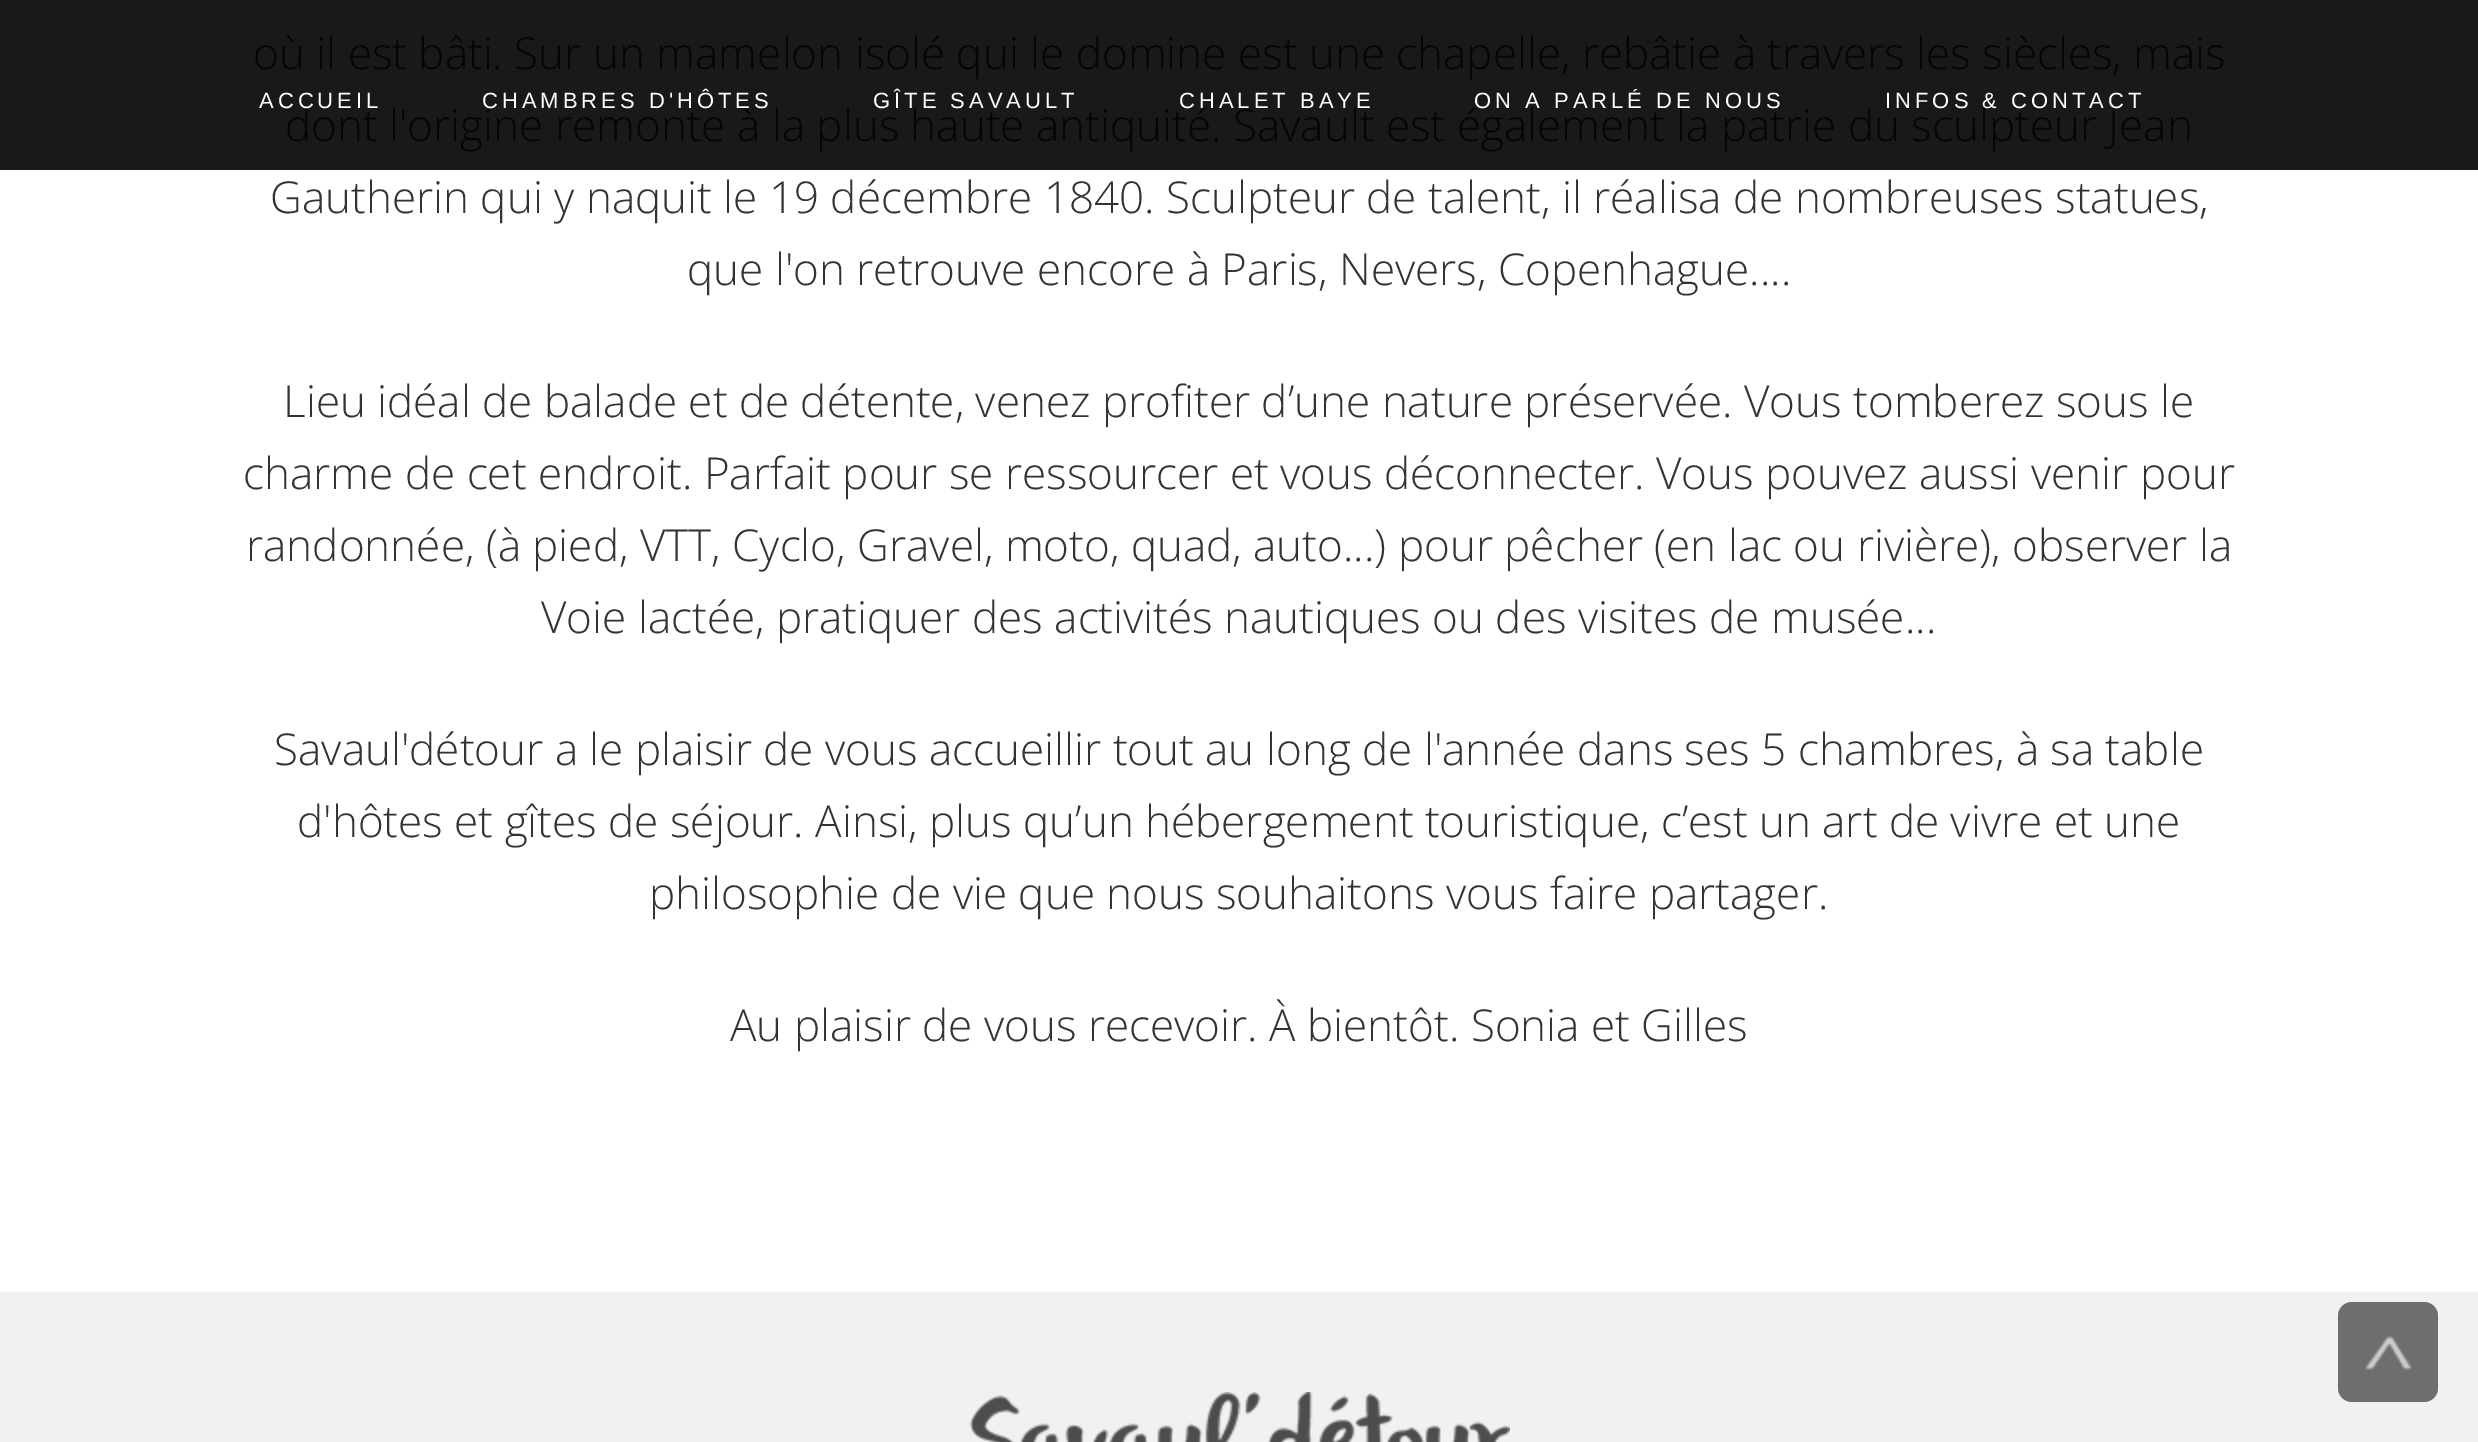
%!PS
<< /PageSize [2478 1442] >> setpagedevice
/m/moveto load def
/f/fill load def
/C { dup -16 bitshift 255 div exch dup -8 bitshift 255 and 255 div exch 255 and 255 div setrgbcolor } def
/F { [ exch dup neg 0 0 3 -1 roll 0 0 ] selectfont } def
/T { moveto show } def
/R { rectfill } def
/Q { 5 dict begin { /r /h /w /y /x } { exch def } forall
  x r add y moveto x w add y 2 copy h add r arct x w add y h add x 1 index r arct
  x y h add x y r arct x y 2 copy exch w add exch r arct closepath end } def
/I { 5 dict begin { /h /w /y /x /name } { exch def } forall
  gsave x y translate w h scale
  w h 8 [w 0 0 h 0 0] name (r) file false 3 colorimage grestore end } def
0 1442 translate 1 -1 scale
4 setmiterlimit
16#FFFFFF C
0 0 2478 1442 R
16#191919 C
0 0 2478 170 R
/OpenSans-Light 44 F
16#050505 C
(où il est bâti. Sur un mamelon isolé qui le domine est une chapelle, rebâtie à travers les siècles, mais) 253 69 T
(dont l'origine remonte à la plus haute antiquité. Savault est également la patrie du sculpteur Jean) 285 141 T
16#333333 C
(Gautherin qui y naquit le 19 décembre 1840. Sculpteur de talent, il réalisa de nombreuses statues,) 270 213 T
(que l'on retrouve encore à Paris, Nevers, Copenhague....) 687 285 T
(Lieu idéal de balade et de détente, venez profiter d’une nature préservée. Vous tomberez sous le) 283 417 T
(charme de cet endroit. Parfait pour se ressourcer et vous déconnecter. Vous pouvez aussi venir pour) 243 489 T
(randonnée, \(à pied, VTT, Cyclo, Gravel, moto, quad, auto...\) pour pêcher \(en lac ou rivière\), observer la) 246 561 T
(Voie lactée, pratiquer des activités nautiques ou des visites de musée...) 541 633 T
(Savaul'détour a le plaisir de vous accueillir tout au long de l'année dans ses 5 chambres, à sa table) 274 765 T
(d'hôtes et gîtes de séjour. Ainsi, plus qu’un hébergement touristique, c’est un art de vivre et une) 297 837 T
(philosophie de vie que nous souhaitons vous faire partager.) 649 909 T
(Au plaisir de vous recevoir. À bientôt. Sonia et Gilles) 730 1041 T
/LiberationSans-Regular 22 F
16#FFFFFF C
259 108 m 4 0 (ACCUEIL) ashow
482 108 m 4 0 (CHAMBRES D'HÔTES) ashow
873 108 m 4 0 (GÎTE SAVAULT) ashow
1179 108 m 4 0 (CHALET BAYE) ashow
1474 108 m 4 0 (ON A PARLÉ DE NOUS) ashow
1885 108 m 4 0 (INFOS & CONTACT) ashow
16#F1F1F1 C
0 1292 2478 150 R
(1.rgb) 969 1392 541 50 I
16#6E6E6E C
2338 1302 100 100 14 Q f
(2.rgb) 2366 1336 46 34 I
showpage
